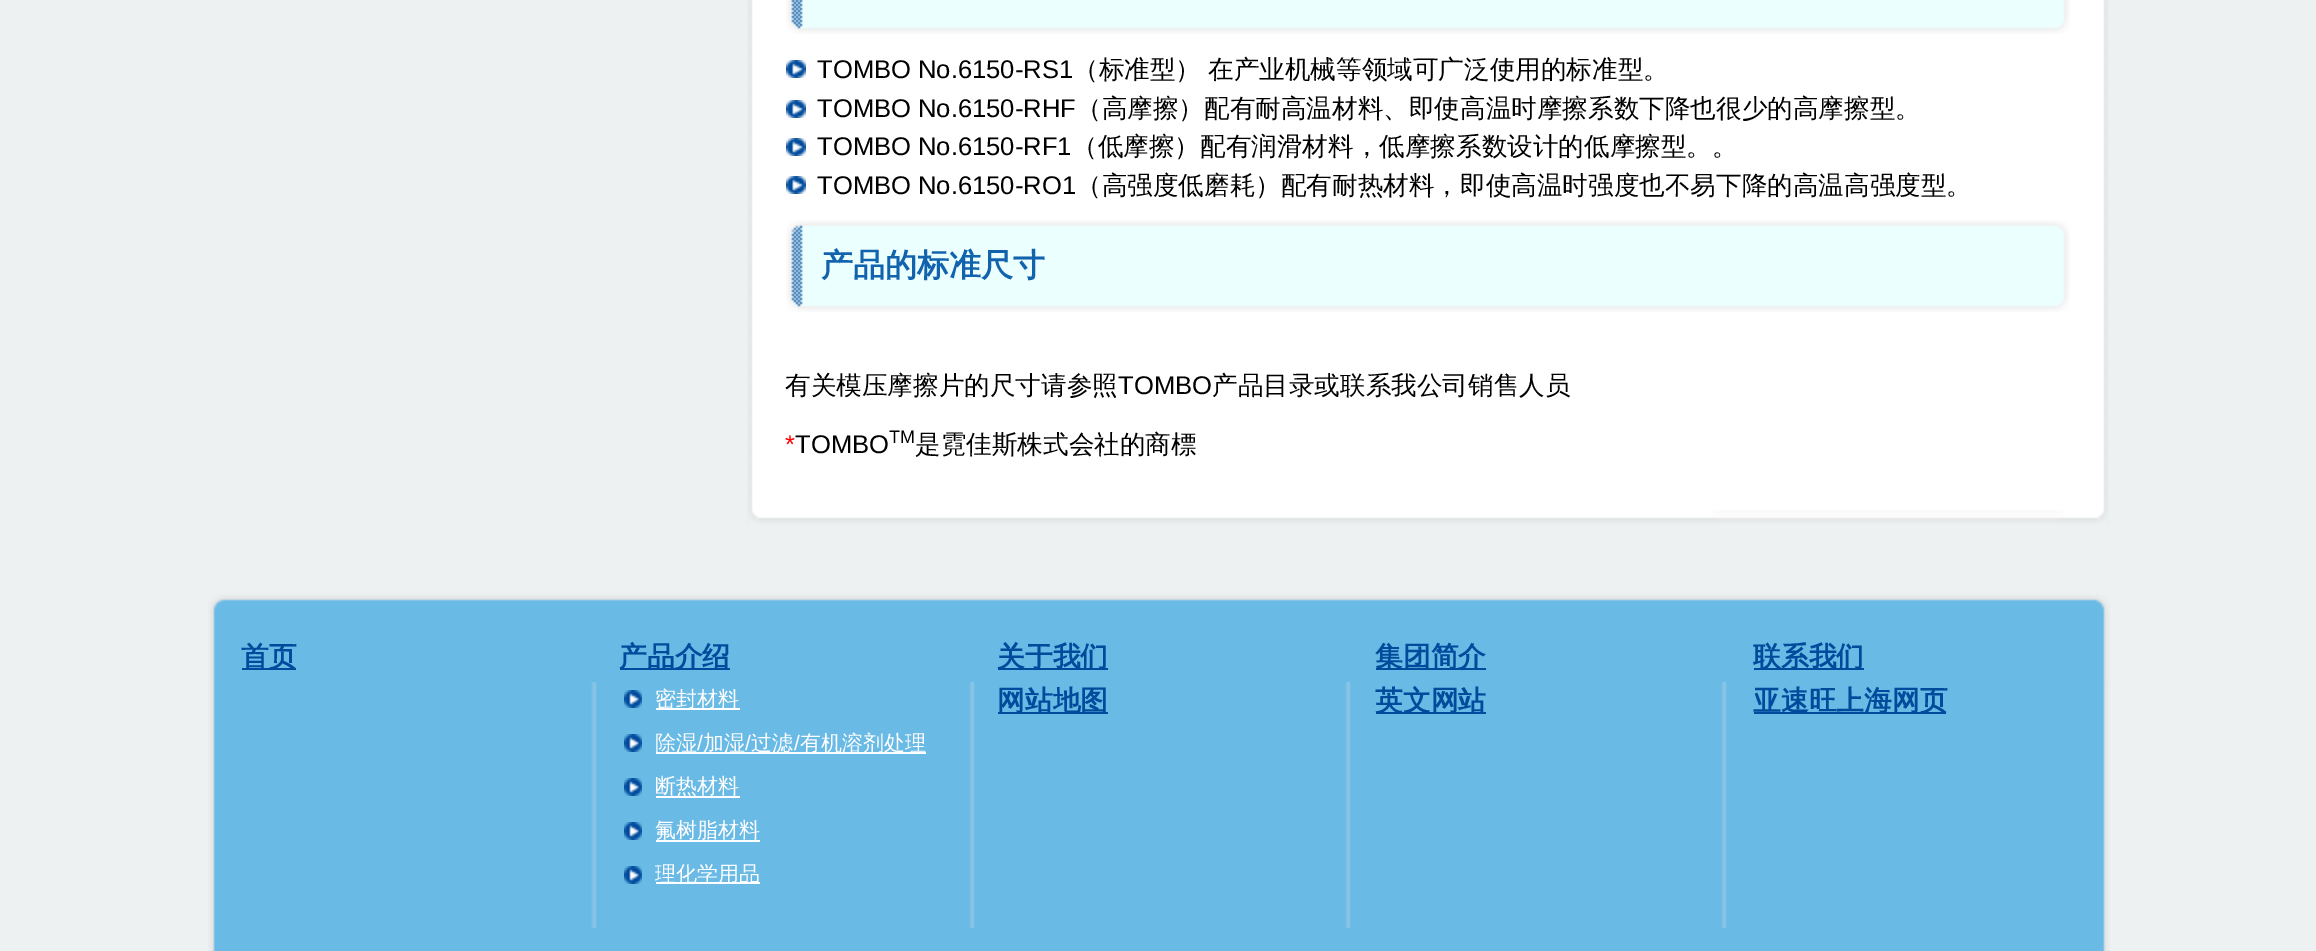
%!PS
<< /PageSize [2316 951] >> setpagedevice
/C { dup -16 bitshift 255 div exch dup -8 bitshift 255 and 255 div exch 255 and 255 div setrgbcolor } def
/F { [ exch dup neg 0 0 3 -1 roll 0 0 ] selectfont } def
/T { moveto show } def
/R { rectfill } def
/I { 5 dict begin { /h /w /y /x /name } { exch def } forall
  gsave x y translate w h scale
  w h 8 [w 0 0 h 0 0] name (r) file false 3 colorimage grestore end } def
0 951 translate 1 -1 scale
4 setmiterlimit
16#EEF1F2 C
0 0 2316 951 R
(1.rgb) 747 0 1362 524 I
(2.rgb) 748 510 1360 14 I
(3.rgb) 786 0 1284 34 I
(4.rgb) 786 60 20 18 I
/LiberationSans-Regular 25.6 F
16#000000 C
(TOMBO No.6150-RS1) 817 78 T
/WenQuanYiZenHei-Medium 25.6 F
(（标准型）) 1073 78 T
(在产业机械等领域可广泛使用的标准型。) 1208 78 T
(4.rgb) 786 100 20 18 I
/LiberationSans-Regular 25.6 F
(TOMBO No.6150-RHF) 817 117 T
/WenQuanYiZenHei-Medium 25.6 F
(（高摩擦）配有耐高温材料、即使高温时摩擦系数下降也很少的高摩擦型。) 1076 117 T
(4.rgb) 786 138 20 18 I
/LiberationSans-Regular 25.6 F
(TOMBO No.6150-RF1) 817 155 T
/WenQuanYiZenHei-Medium 25.6 F
(（低摩擦）配有润滑材料，低摩擦系数设计的低摩擦型。。) 1072 155 T
(4.rgb) 786 176 20 18 I
/LiberationSans-Regular 25.6 F
(TOMBO No.6150-RO1) 817 194 T
/WenQuanYiZenHei-Medium 25.6 F
(（高强度低磨耗）配有耐热材料，即使高温时强度也不易下降的高温高强度型。) 1076 194 T
(5.rgb) 786 220 1284 92 I
/WenQuanYiZenHei-Bold 32 F
16#1163AD C
(产品的标准尺寸) 821 276 T
/WenQuanYiZenHei-Medium 25.6 F
16#000000 C
(有关模压摩擦片的尺寸请参照) 785 394 T
/LiberationSans-Regular 25.6 F
(TOMBO) 1118 394 T
/WenQuanYiZenHei-Medium 25.6 F
(产品目录或联系我公司销售人员) 1212 394 T
/LiberationSans-Regular 25.6 F
16#FF0000 C
(*) 785 453 T
16#000000 C
(TOMBO) 795 453 T
/LiberationSans-Regular 18 F
(TM) 889 443 T
/WenQuanYiZenHei-Medium 25.6 F
(是霓佳斯株式会社的商標) 915 453 T
(6.rgb) 208 682 1902 269 I
16#6ABAE6 C
591 928 1136 23 R
(7.rgb) 208 594 1902 88 I
16#004B9C C
242 668 54 2 R
/WenQuanYiZenHei-Bold 27.75 F
(首页) 241 666 T
620 668 110 2 R
(产品介绍) 619 666 T
(8.rgb) 624 690 18 18 I
16#FFFFFF C
656 708 84 2 R
/WenQuanYiZenHei-Medium 21 F
(密封材料) 655 706 T
(8.rgb) 624 734 18 18 I
656 752 270 2 R
(除湿) 655 750 T
/LiberationSans-Regular 21 F
(/) 697 750 T
/WenQuanYiZenHei-Medium 21 F
(加湿) 703 750 T
/LiberationSans-Regular 21 F
(/) 745 750 T
/WenQuanYiZenHei-Medium 21 F
(过滤) 751 750 T
/LiberationSans-Regular 21 F
(/) 794 750 T
/WenQuanYiZenHei-Medium 21 F
(有机溶剂处理) 800 750 T
(8.rgb) 624 778 18 18 I
656 796 84 2 R
(断热材料) 655 793 T
(8.rgb) 624 822 18 18 I
(氟树脂材料) 655 837 T
656 840 104 2 R
(8.rgb) 624 866 18 18 I
656 882 104 2 R
(理化学用品) 655 881 T
16#004B9C C
998 668 110 2 R
/WenQuanYiZenHei-Bold 27.75 F
(关于我们) 997 666 T
1376 668 110 2 R
(集团简介) 1375 666 T
1754 668 110 2 R
(联系我们) 1753 666 T
998 712 110 2 R
(网站地图) 997 710 T
1376 712 110 2 R
(英文网站) 1375 710 T
1754 712 192 2 R
(亚速旺上海网页) 1753 710 T
showpage
